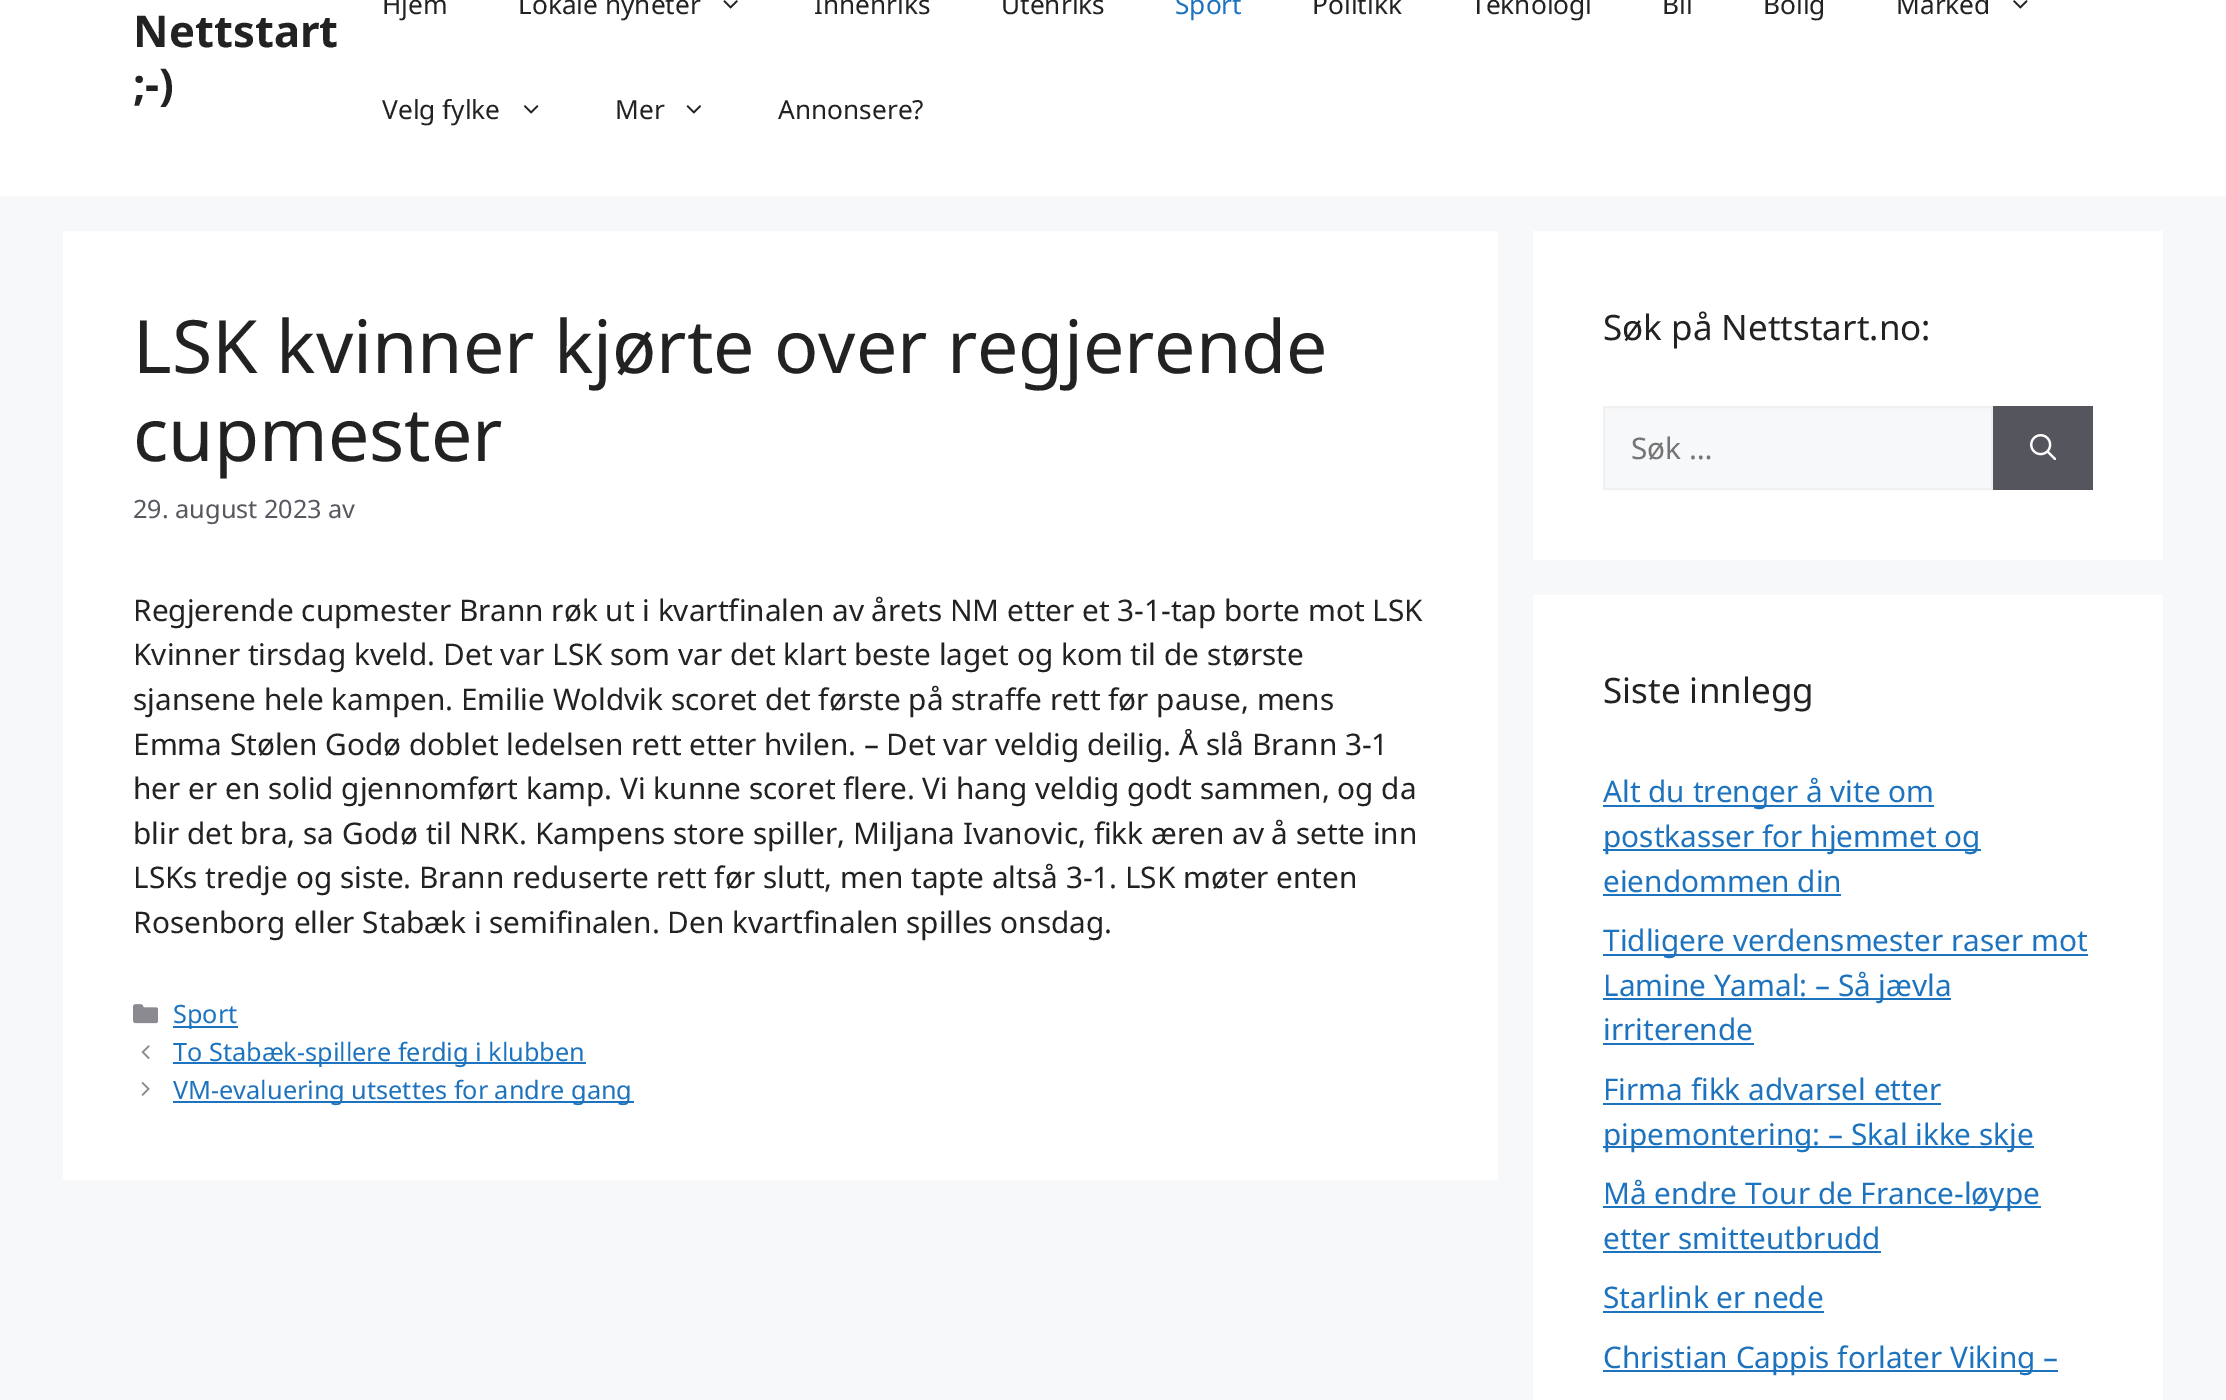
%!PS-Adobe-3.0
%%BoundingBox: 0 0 2226 1400
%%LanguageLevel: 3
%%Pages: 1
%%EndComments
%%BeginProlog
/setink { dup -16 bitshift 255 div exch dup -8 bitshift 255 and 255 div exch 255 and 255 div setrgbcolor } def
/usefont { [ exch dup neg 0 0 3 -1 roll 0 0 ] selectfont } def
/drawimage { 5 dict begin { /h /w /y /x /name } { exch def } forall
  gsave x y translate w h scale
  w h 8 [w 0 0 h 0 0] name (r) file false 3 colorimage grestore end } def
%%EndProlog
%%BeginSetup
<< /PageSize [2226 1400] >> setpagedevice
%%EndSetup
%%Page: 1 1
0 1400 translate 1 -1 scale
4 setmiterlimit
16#F7F8F9 setink
0 0 2226 1400 rectfill
16#FFFFFF setink
0 0 2226 196 rectfill
/NotoSans-Bold 43.75 usefont
16#222222 setink
133 47 moveto (Nettstart) show
133 100 moveto (;-\)) show
/NotoSans-Regular 26.25 usefont
382 14 moveto (Hjem) show
518 14 moveto (Lokale nyheter) show
(img1.raw) 723 0 15 9 drawimage
814 14 moveto (Innenriks) show
1001 14 moveto (Utenriks) show
16#1E73BE setink
1175 14 moveto (Sport) show
16#222222 setink
[
    [(Politikk) 1312 14]
    [(Teknologi) 1471 14]
    [(Bil) 1662 14]
    [(Bolig) 1763 14]
    [(Marked) 1896 14]
] { aload pop moveto show } forall
(img2.raw) 2013 0 15 9 drawimage
382 119 moveto (Velg fylke) show
(img3.raw) 523 105 16 9 drawimage
615 119 moveto (Mer) show
(img4.raw) 686 105 16 9 drawimage
778 119 moveto (Annonsere?) show
16#FFFFFF setink
63 231 1435 949 rectfill
/NotoSans-Regular 73.5 usefont
16#222222 setink
133 373 moveto (LSK kvinner kjørte over regjerende) show
133 461 moveto (cupmester) show
/NotoSans-Regular 25.25 usefont
16#575760 setink
133 518 moveto (29. august 2023 av) show
/NotoSans-Regular 29.75 usefont
16#222222 setink
[
    [(Regjerende cupmester Brann røk ut i kvartfinalen av årets NM etter et 3-1-tap borte mot LSK) 133 621]
    [(Kvinner tirsdag kveld. Det var LSK som var det klart beste laget og kom til de største) 133 665]
    [(sjansene hele kampen. Emilie Woldvik scoret det første på straffe rett før pause, mens) 133 710]
    [(Emma Stølen Godø doblet ledelsen rett etter hvilen. – Det var veldig deilig. Å slå Brann 3-1) 133 755]
    [(her er en solid gjennomført kamp. Vi kunne scoret flere. Vi hang veldig godt sammen, og da) 133 799]
    [(blir det bra, sa Godø til NRK. Kampens store spiller, Miljana Ivanovic, fikk æren av å sette inn) 133 844]
    [(LSKs tredje og siste. Brann reduserte rett før slutt, men tapte altså 3-1. LSK møter enten) 133 888]
    [(Rosenborg eller Stabæk i semifinalen. Den kvartfinalen spilles onsdag.) 133 933]
] { aload pop moveto show } forall
(img5.raw) 133 1004 25 20 drawimage
16#1E73BE setink
173 1026 65 2 rectfill
/NotoSans-Regular 25.25 usefont
173 1023 moveto (Sport) show
(img6.raw) 141 1045 9 14 drawimage
173 1062 413 2 rectfill
173 1061 moveto (To Stabæk-spillere ferdig i klubben) show
(img7.raw) 141 1082 9 14 drawimage
173 1101 461 2 rectfill
173 1099 moveto (VM-evaluering utsettes for andre gang) show
16#FFFFFF setink
1533 231 630 329 rectfill
/NotoSans-Regular 35 usefont
16#222222 setink
1603 340 moveto (Søk på Nettstart.no:) show
16#F7F8F9 setink
1604 407 moveto 1992 407 lineto 1992 489 lineto 1604 489 lineto closepath gsave fill grestore
16#F0F0F0 setink
2 setlinewidth
stroke
/NotoSans-Regular 29.75 usefont
16#757575 setink
1631 459 moveto (Søk …) show
16#55555E setink
1993 406 100 84 rectfill
(img8.raw) 2030 434 26 26 drawimage
16#FFFFFF setink
1533 595 630 805 rectfill
/NotoSans-Regular 35 usefont
16#222222 setink
1603 703 moveto (Siste innlegg) show
16#1E73BE setink
1603 805 331 2 rectfill
/NotoSans-Regular 29.75 usefont
1603 802 moveto (Alt du trenger å vite om) show
1603 849 378 2 rectfill
1603 847 moveto (postkasser for hjemmet og) show
1603 892 moveto (eiendommen din) show
1603 894 238 2 rectfill
1603 954 485 2 rectfill
1603 951 moveto (Tidligere verdensmester raser mot) show
1603 998 348 2 rectfill
1603 996 moveto (Lamine Yamal: – Så jævla) show
1603 1040 moveto (irriterende) show
1603 1043 151 2 rectfill
1603 1100 moveto (Firma fikk advarsel etter) show
1603 1103 338 2 rectfill
1603 1146 431 2 rectfill
1603 1145 moveto (pipemontering: – Skal ikke skje) show
1603 1206 438 2 rectfill
1603 1204 moveto (Må endre Tour de France-løype) show
1603 1249 moveto (etter smitteutbrudd) show
1603 1251 278 2 rectfill
1603 1308 moveto (Starlink er nede) show
1603 1311 221 2 rectfill
1603 1370 455 2 rectfill
1603 1368 moveto (Christian Cappis forlater Viking –) show
showpage
%%EOF
